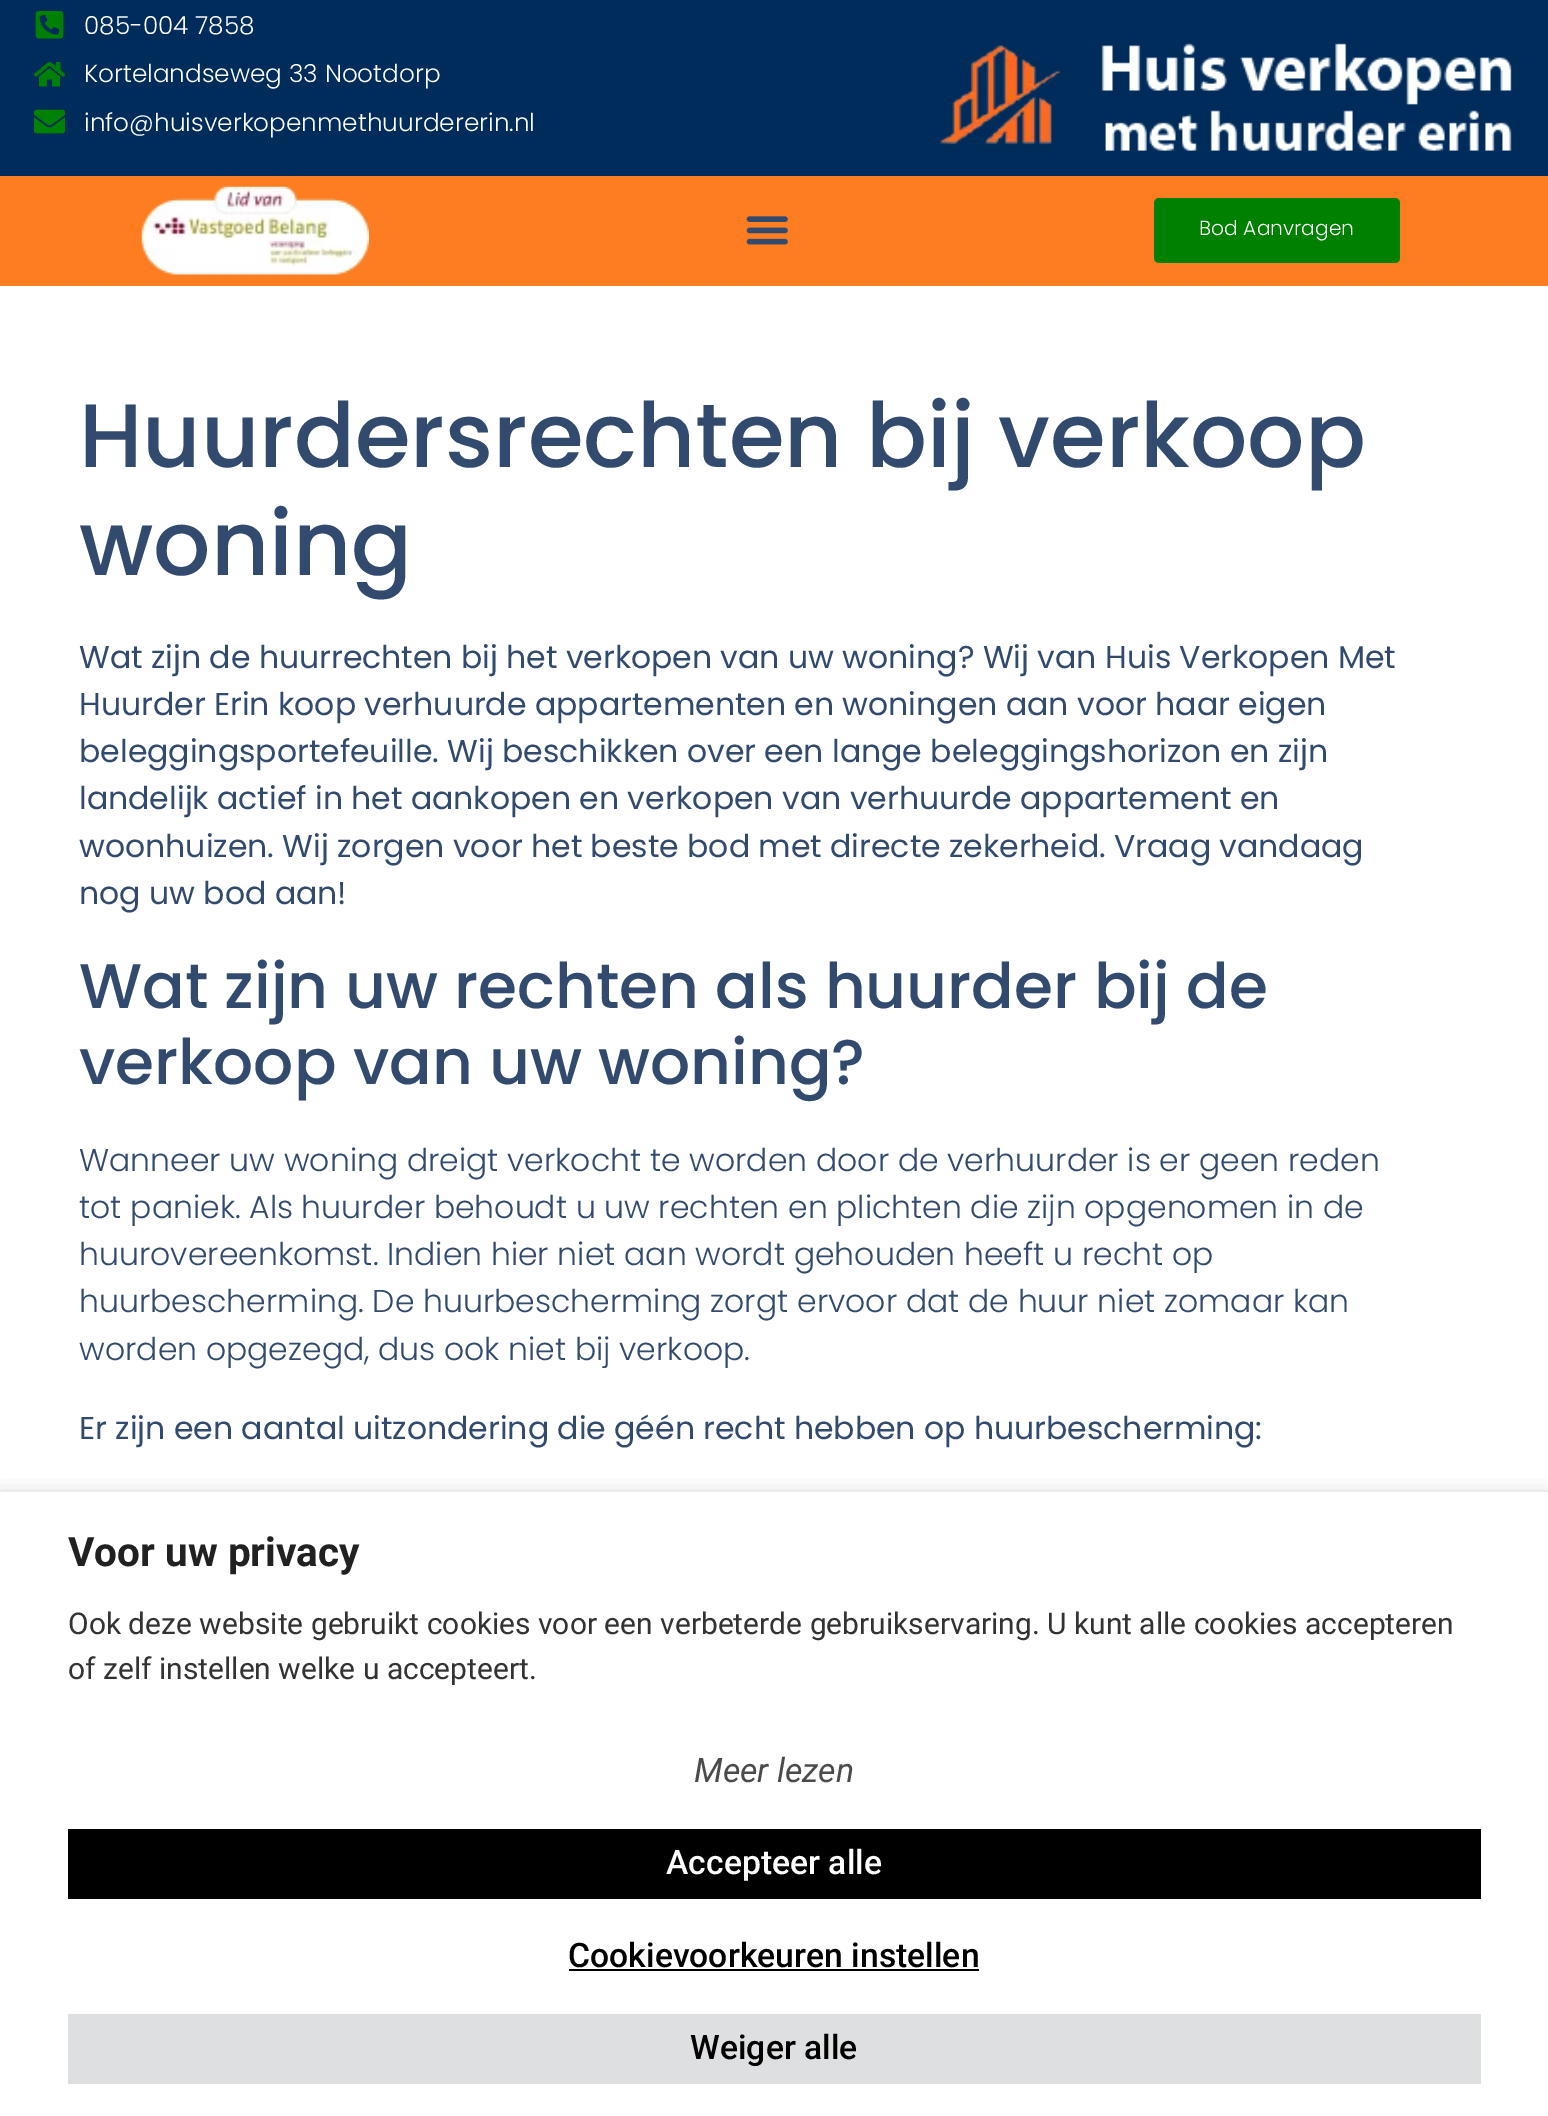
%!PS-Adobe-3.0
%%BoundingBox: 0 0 1548 2116
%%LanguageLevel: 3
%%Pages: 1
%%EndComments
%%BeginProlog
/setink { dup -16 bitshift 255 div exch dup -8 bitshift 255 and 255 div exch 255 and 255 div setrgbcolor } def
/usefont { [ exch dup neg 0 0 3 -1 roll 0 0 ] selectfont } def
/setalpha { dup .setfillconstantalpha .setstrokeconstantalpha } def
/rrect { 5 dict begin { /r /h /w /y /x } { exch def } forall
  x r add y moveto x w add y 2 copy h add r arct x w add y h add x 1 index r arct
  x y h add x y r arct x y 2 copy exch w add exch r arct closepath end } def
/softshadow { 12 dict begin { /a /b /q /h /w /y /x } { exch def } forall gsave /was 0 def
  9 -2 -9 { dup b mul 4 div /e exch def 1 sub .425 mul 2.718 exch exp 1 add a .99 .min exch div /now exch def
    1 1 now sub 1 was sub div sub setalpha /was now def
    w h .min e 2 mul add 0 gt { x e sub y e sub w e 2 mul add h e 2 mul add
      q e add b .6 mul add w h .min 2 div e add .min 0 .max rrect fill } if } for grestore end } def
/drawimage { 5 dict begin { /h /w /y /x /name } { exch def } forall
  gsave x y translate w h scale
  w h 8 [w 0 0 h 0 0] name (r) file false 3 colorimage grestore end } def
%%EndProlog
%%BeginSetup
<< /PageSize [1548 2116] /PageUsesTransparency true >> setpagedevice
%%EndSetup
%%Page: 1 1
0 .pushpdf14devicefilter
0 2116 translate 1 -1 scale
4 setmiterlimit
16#FFFFFF setink
0 0 1548 2116 rectfill
16#002C5B setink
0 0 1548 176 rectfill
(img1.raw) 35 11 29 28 drawimage
/Poppins-Light 24.75 usefont
16#FFFFFF setink
84 34 moveto (085-004 7858) show
(img2.raw) 34 62 31 25 drawimage
84 82 moveto (Kortelandseweg 33 Nootdorp) show
(img3.raw) 34 109 31 25 drawimage
84 131 moveto (info@huisverkopenmethuurdererin.nl) show
(img4.raw) 940 43 572 108 drawimage
16#FF7D21 setink
0 176 1548 110 rectfill
(img5.raw) 141 186 228 89 drawimage
(img6.raw) 746 216 42 29 drawimage
16#008000 setink
1154 198 246 65 5 rrect fill
/Poppins-Light 20.25 usefont
16#FFFFFF setink
1199 235 moveto (Bod Aanvragen) show
/Poppins-Medium 90 usefont
16#324A6D setink
79 467 moveto (Huurdersrechten bij verkoop) show
79 575 moveto (woning) show
/Poppins-Regular 31.5 usefont
[
    [(Wat zijn de huurrechten bij het verkopen van uw woning? Wij van Huis Verkopen Met) 79 668]
    [(Huurder Erin koop verhuurde appartementen en woningen aan voor haar eigen) 79 715]
    [(beleggingsportefeuille. Wij beschikken over een lange beleggingshorizon en zijn) 79 762]
    [(landelijk actief in het aankopen en verkopen van verhuurde appartement en) 79 809]
    [(woonhuizen. Wij zorgen voor het beste bod met directe zekerheid. Vraag vandaag) 79 857]
    [(nog uw bod aan!) 79 904]
] { aload pop moveto show } forall
/Poppins-Medium 63 usefont
79 1008 moveto (Wat zijn uw rechten als huurder bij de) show
79 1084 moveto (verkoop van uw woning?) show
/Poppins-Light 31.5 usefont
[
    [(Wanneer uw woning dreigt verkocht te worden door de verhuurder is er geen reden) 79 1171]
    [(tot paniek. Als huurder behoudt u uw rechten en plichten die zijn opgenomen in de) 79 1218]
    [(huurovereenkomst. Indien hier niet aan wordt gehouden heeft u recht op) 79 1265]
    [(huurbescherming. De huurbescherming zorgt ervoor dat de huur niet zomaar kan) 79 1312]
    [(worden opgezegd, dus ook niet bij verkoop.) 79 1360]
] { aload pop moveto show } forall
/Poppins-Regular 31.5 usefont
79 1439 moveto (Er zijn een aantal uitzondering die géén recht hebben op huurbescherming:) show
16#000000 setink
0 1503 1548 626 0 11 0.5 softshadow
16#FFFFFF setink
0 1492 1548 624 rectfill
/Roboto-Bold 40.5 usefont
16#212121 setink
68 1566 moveto (Voor uw privacy) show
/Roboto-Regular 30 usefont
16#333333 setink
68 1634 moveto (Ook deze website gebruikt cookies voor een verbeterde gebruikservaring. U kunt alle cookies accepteren) show
68 1679 moveto (of zelf instellen welke u accepteert.) show
/Roboto-Italic 33.75 usefont
16#4C4B4B setink
694 1782 moveto (Meer lezen) show
16#000000 setink
68 1829 1413 70 rectfill
/Roboto-Medium 33.75 usefont
16#FFFFFF setink
666 1874 moveto (Accepteer alle) show
16#000000 setink
568 1967 moveto (Cookievoorkeuren instellen) show
569 1969 410 2 rectfill
16#DEDFE0 setink
68 2014 1413 70 rectfill
16#000000 setink
690 2059 moveto (Weiger alle) show
.poppdf14devicefilter showpage
%%EOF
